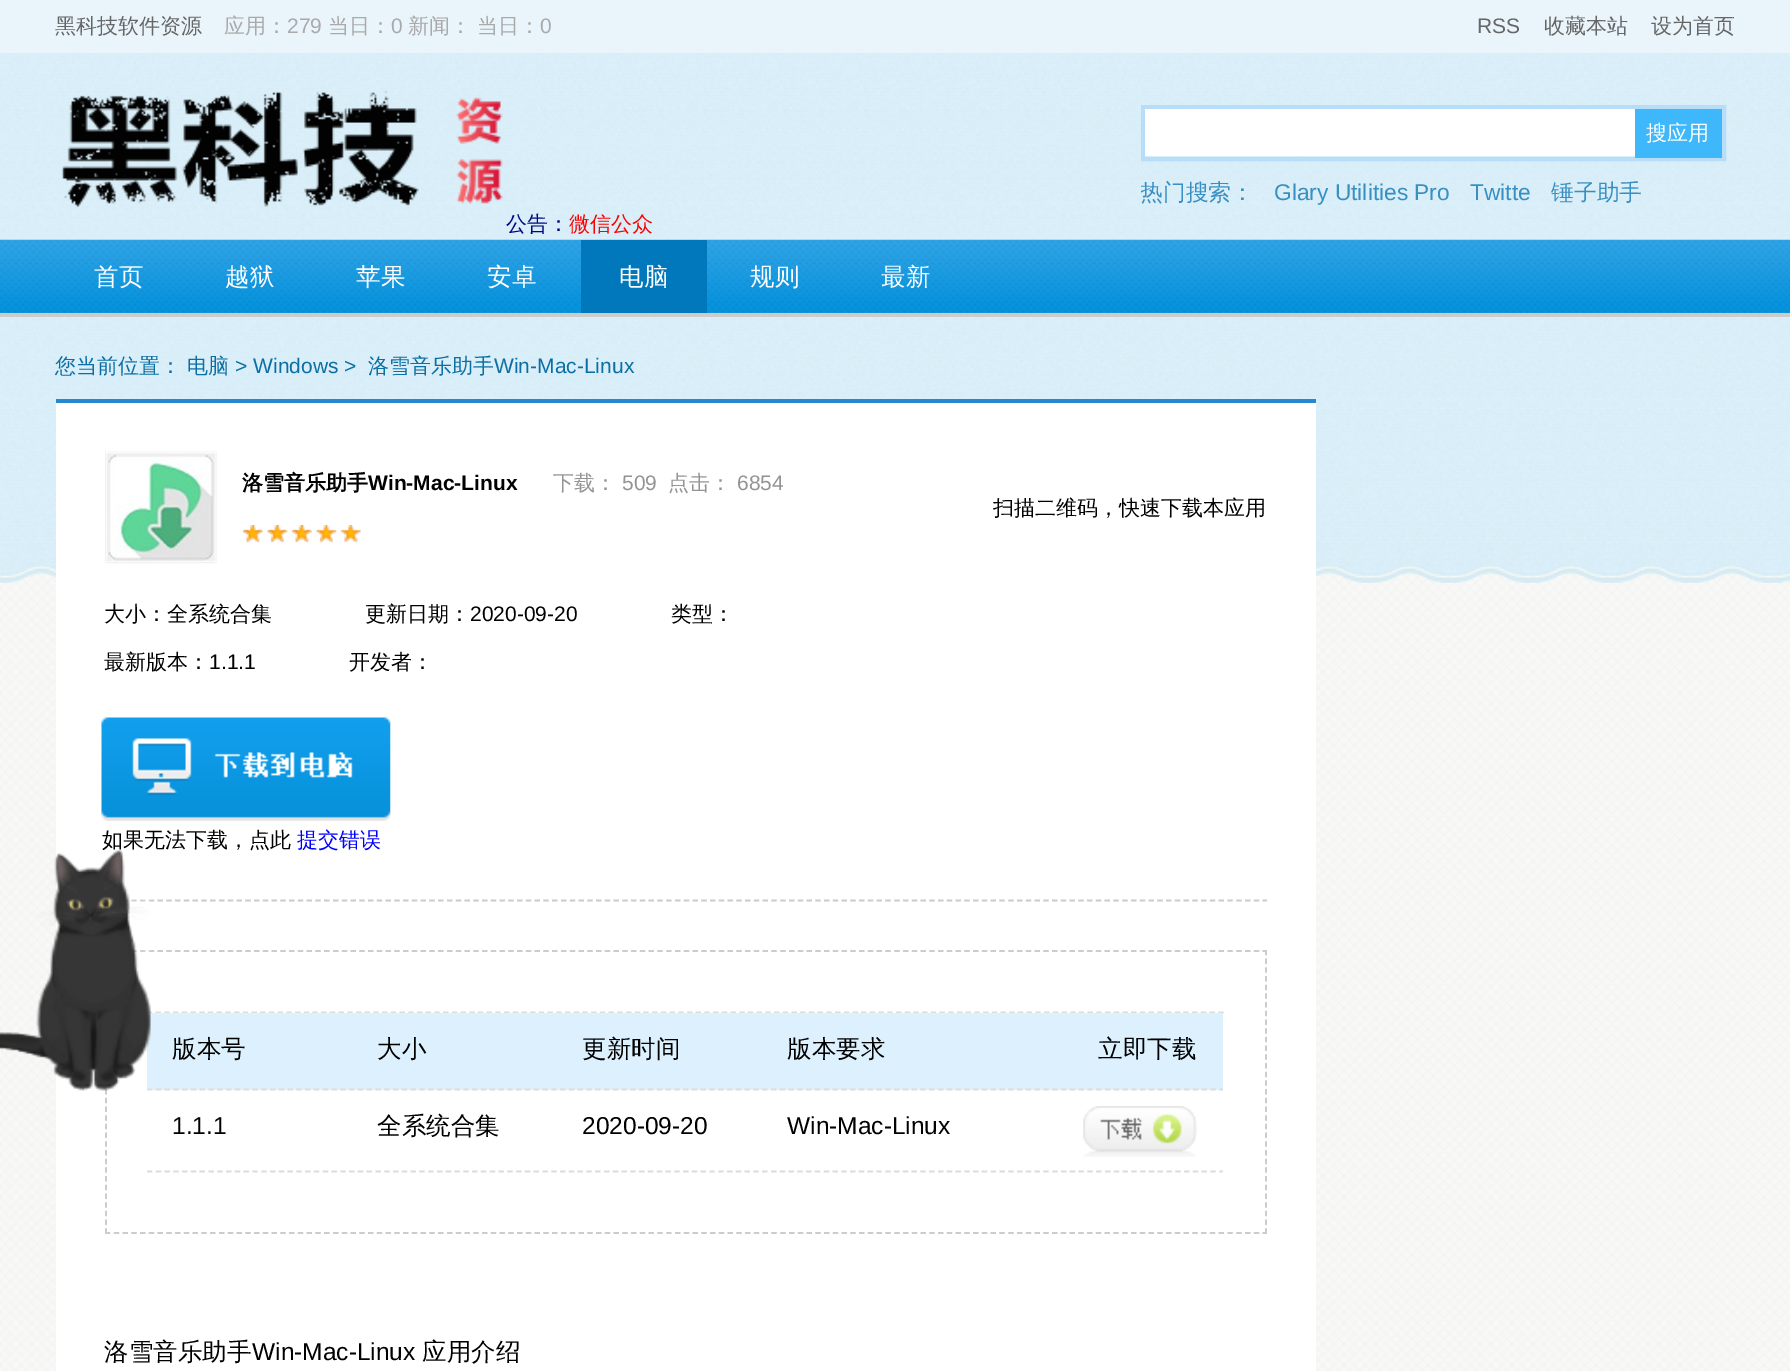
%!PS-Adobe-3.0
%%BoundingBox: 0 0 1790 1371
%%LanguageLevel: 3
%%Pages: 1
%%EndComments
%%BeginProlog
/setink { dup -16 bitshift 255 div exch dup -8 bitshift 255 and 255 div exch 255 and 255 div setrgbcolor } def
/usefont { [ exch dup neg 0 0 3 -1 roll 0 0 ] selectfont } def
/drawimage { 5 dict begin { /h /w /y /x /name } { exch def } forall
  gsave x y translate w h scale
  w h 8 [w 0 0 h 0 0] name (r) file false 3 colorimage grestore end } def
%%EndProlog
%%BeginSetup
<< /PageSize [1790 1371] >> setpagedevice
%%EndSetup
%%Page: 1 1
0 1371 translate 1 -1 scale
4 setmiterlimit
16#FFFFFF setink
0 0 1790 1371 rectfill
(img1.raw) 0 566 1790 805 drawimage
(img2.raw) 0 53 1790 530 drawimage
16#E9F5FB setink
0 0 1790 53 rectfill
/WenQuanYiZenHei-Medium 21 usefont
16#666666 setink
55 33 moveto (黑科技软件资源) show
16#AAAAAA setink
224 33 moveto (应用：) show
/LiberationSans-Regular 21 usefont
287 33 moveto (279) show
/WenQuanYiZenHei-Medium 21 usefont
328 33 moveto (当日：) show
/LiberationSans-Regular 21 usefont
391 33 moveto (0) show
/WenQuanYiZenHei-Medium 21 usefont
408 33 moveto (新闻： 当日：) show
/LiberationSans-Regular 21 usefont
540 33 moveto (0) show
16#666666 setink
1477 33 moveto (RSS) show
/WenQuanYiZenHei-Medium 21 usefont
1544 33 moveto (收藏本站) show
1651 33 moveto (设为首页) show
(img3.raw) 62 90 441 117 drawimage
16#B8DDF8 setink
4 setlinewidth
1143 107 581 52 rectstroke
16#FFFFFF setink
1145 109 490 47 rectfill
16#3EB8FA setink
1635 109 87 49 rectfill
16#FFFFFF setink
1646 140 moveto (搜应用) show
gsave
1141 161 578 63 rectclip
/WenQuanYiZenHei-Medium 22.75 usefont
16#3890C2 setink
1140 200 moveto (热门搜索：) show
grestore
/LiberationSans-Regular 22.75 usefont
16#3890C2 setink
1274 200 moveto (Glary Utilities Pro) show
1470 200 moveto (Twitte) show
/WenQuanYiZenHei-Medium 22.75 usefont
1551 200 moveto (锤子助手) show
/WenQuanYiZenHei-Medium 21 usefont
16#000880 setink
506 231 moveto (公告：) show
16#FF0000 setink
569 231 moveto (微信公众) show
(img4.raw) 0 239 1790 74 drawimage
16#CCCCCC setink
0 313 1790 4 rectfill
/WenQuanYiZenHei-Medium 24.5 usefont
16#FFFFFF setink
[
    [(首页) 94 285]
    [(越狱) 225 285]
    [(苹果) 356 285]
    [(安卓) 487 285]
] { aload pop moveto show } forall
16#0078BB setink
581 240 126 73 rectfill
16#FFFFFF setink
[
    [(电脑) 619 285]
    [(规则) 750 285]
    [(最新) 881 285]
] { aload pop moveto show } forall
/WenQuanYiZenHei-Medium 21 usefont
16#0C6FA4 setink
55 373 moveto (您当前位置：) show
187 373 moveto (电脑) show
/LiberationSans-Regular 21 usefont
235 373 moveto (> Windows >) show
/WenQuanYiZenHei-Medium 21 usefont
368 373 moveto (洛雪音乐助手) show
/LiberationSans-Regular 21 usefont
494 373 moveto (Win-Mac-Linux) show
16#FFFFFF setink
56 403 1260 968 rectfill
16#2788CF setink
56 399 1260 4 rectfill
(img5.raw) 105 451 112 113 drawimage
/WenQuanYiZenHei-Bold 21 usefont
16#000000 setink
242 490 moveto (洛雪音乐助手) show
/LiberationSans-Bold 21 usefont
368 490 moveto (Win-Mac-Linux) show
/WenQuanYiZenHei-Medium 21 usefont
16#949494 setink
553 490 moveto (下载：) show
/LiberationSans-Regular 21 usefont
622 490 moveto (509) show
/WenQuanYiZenHei-Medium 21 usefont
668 490 moveto (点击：) show
/LiberationSans-Regular 21 usefont
737 490 moveto (6854) show
(img6.raw) 243 525 118 18 drawimage
(img7.raw) 243 525 118 18 drawimage
/WenQuanYiZenHei-Medium 21 usefont
16#000000 setink
104 621 moveto (大小：全系统合集) show
365 621 moveto (更新日期：) show
/LiberationSans-Regular 21 usefont
470 621 moveto (2020-09-20) show
/WenQuanYiZenHei-Medium 21 usefont
671 621 moveto (类型：) show
104 669 moveto (最新版本：) show
/LiberationSans-Regular 21 usefont
209 669 moveto (1.1.1) show
/WenQuanYiZenHei-Medium 21 usefont
349 669 moveto (开发者：) show
993 515 moveto (扫描二维码，快速下载本应用) show
(img8.raw) 101 717 290 104 drawimage
102 847 moveto (如果无法下载，点此) show
16#0000FF setink
297 847 moveto (提交错误) show
16#CCCCCC setink
1.8 setlinewidth
[5.25 3.52] 0 setdash
105 900.5 moveto 1267 900.5 lineto stroke
105 951 moveto 1267 951 lineto stroke
[5.25 3.45] 0 setdash
1266 950 moveto 1266 1234 lineto stroke
[5.25 3.52] 0 setdash
105 1233 moveto 1267 1233 lineto stroke
[5.25 3.45] 0 setdash
106 950 moveto 106 1234 lineto stroke
16#DDDDDD setink
[5.25 3.46] 0 setdash
147 1012.5 moveto 1225 1012.5 lineto stroke
16#DDF0FD setink
147 1013 1076 77 rectfill
16#DDDDDD setink
[5.25 3.54] 0 setdash
147 1089.5 moveto 1223 1089.5 lineto stroke
/WenQuanYiZenHei-Medium 24.5 usefont
16#000000 setink
[
    [(版本号) 172 1057]
    [(大小) 377 1057]
    [(更新时间) 582 1057]
    [(版本要求) 787 1057]
    [(立即下载) 1098 1057]
] { aload pop moveto show } forall
16#DDDDDD setink
147 1171.5 moveto 1223 1171.5 lineto stroke
/LiberationSans-Regular 24.5 usefont
16#000000 setink
172 1134 moveto (1.1.1) show
/WenQuanYiZenHei-Medium 24.5 usefont
377 1134 moveto (全系统合集) show
/LiberationSans-Regular 24.5 usefont
582 1134 moveto (2020-09-20) show
787 1134 moveto (Win-Mac-Linux) show
(img9.raw) 1083 1106 114 51 drawimage
/WenQuanYiZenHei-Medium 24.5 usefont
104 1360 moveto (洛雪音乐助手) show
/LiberationSans-Regular 24.5 usefont
252 1360 moveto (Win-Mac-Linux) show
/WenQuanYiZenHei-Medium 24.5 usefont
422 1360 moveto (应用介绍) show
(img10.raw) 0 850 151 241 drawimage
showpage
%%EOF
